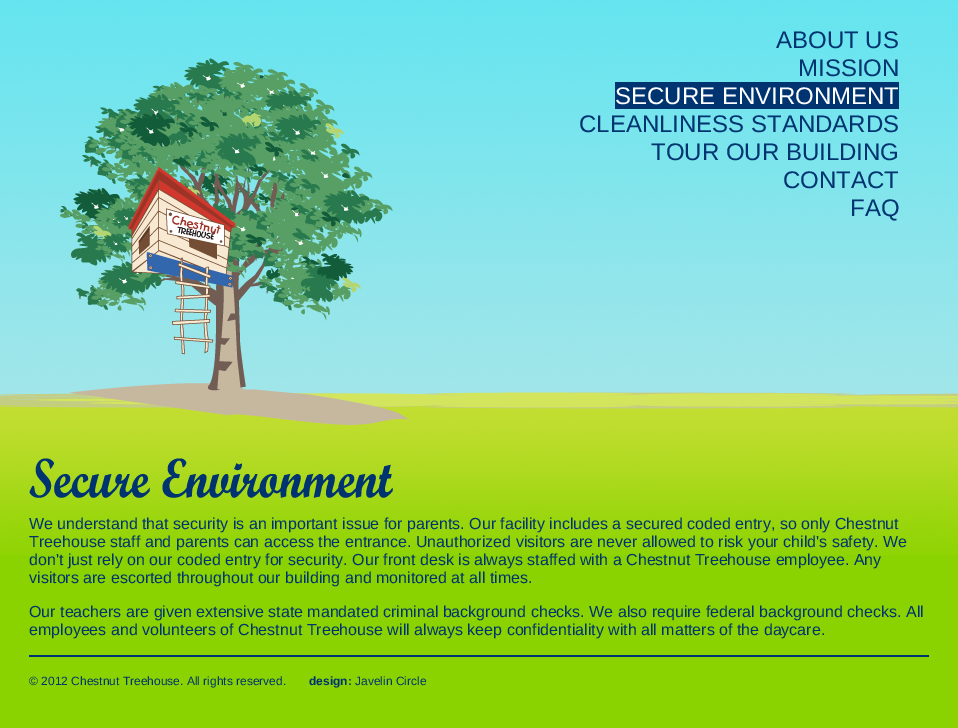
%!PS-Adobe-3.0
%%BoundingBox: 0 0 958 728
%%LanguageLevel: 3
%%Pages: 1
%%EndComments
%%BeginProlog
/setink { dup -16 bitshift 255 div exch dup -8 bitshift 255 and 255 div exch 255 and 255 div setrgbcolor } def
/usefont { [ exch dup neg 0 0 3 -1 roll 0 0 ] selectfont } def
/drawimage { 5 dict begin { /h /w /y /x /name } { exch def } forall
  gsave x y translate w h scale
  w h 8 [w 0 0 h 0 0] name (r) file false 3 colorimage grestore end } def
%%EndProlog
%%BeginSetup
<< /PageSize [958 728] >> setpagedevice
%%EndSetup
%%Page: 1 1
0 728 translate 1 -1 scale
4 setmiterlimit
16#8BD300 setink
0 0 958 728 rectfill
(img1.raw) 0 0 958 555 drawimage
(img2.raw) 60 58 350 367 drawimage
/LiberationSans-Regular 24 usefont
16#003471 setink
776 48 moveto (ABOUT US) show
798 76 moveto (MISSION) show
615 82 284 27 rectfill
16#FFFFFF setink
615 104 moveto (SECURE ENVIRONMENT) show
16#003471 setink
[
    [(CLEANLINESS STANDARDS) 579 132]
    [(TOUR OUR BUILDING) 651 160]
    [(CONTACT) 783 188]
    [(FAQ) 850 216]
] { aload pop moveto show } forall
(img3.raw) 29 458 364 40 drawimage
/LiberationSans-Regular 16 usefont
[
    [(We understand that security is an important issue for parents. Our facility includes a secured coded entry, so only Chestnut) 29 529]
    [(Treehouse staff and parents can access the entrance. Unauthorized visitors are never allowed to risk your child's safety. We) 29 547]
    [(don't just rely on our coded entry for security. Our front desk is always staffed with a Chestnut Treehouse employee. Any) 29 565]
    [(visitors are escorted throughout our building and monitored at all times.) 29 583]
    [(Our teachers are given extensive state mandated criminal background checks. We also require federal background checks. All) 29 617]
    [(employees and volunteers of Chestnut Treehouse will always keep confidentiality with all matters of the daycare.) 29 635]
] { aload pop moveto show } forall
29 655 900 2 rectfill
/LiberationSans-Regular 12 usefont
29 685 moveto (© 2012 Chestnut Treehouse. All rights reserved.) show
/LiberationSans-Bold 12 usefont
309 685 moveto (design:) show
/LiberationSans-Regular 12 usefont
355 685 moveto (Javelin Circle) show
showpage
%%EOF
